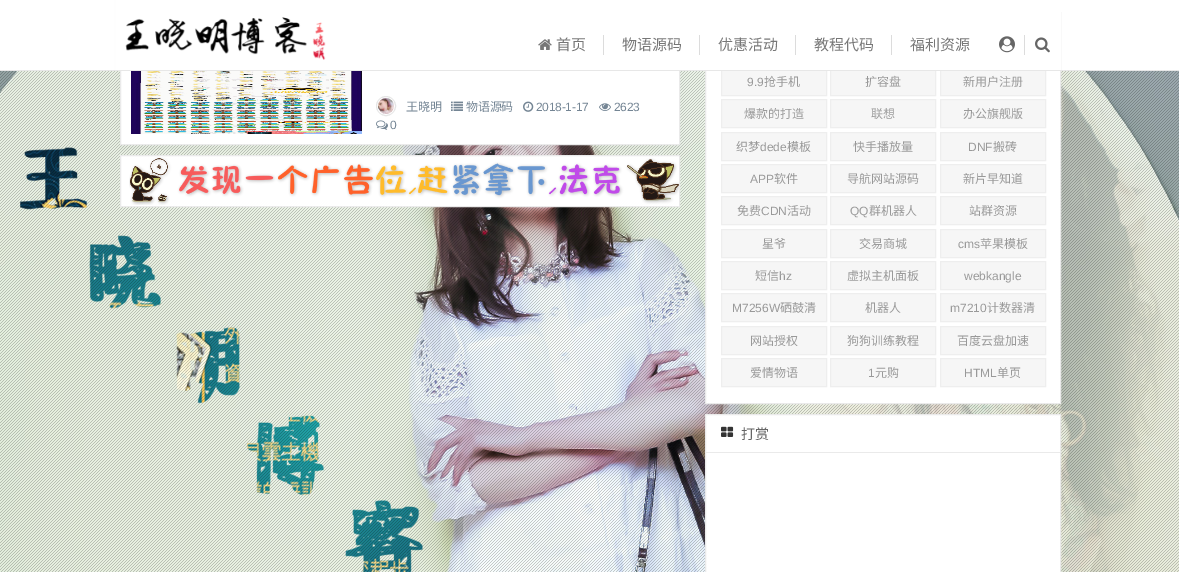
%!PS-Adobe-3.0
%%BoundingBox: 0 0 1179 572
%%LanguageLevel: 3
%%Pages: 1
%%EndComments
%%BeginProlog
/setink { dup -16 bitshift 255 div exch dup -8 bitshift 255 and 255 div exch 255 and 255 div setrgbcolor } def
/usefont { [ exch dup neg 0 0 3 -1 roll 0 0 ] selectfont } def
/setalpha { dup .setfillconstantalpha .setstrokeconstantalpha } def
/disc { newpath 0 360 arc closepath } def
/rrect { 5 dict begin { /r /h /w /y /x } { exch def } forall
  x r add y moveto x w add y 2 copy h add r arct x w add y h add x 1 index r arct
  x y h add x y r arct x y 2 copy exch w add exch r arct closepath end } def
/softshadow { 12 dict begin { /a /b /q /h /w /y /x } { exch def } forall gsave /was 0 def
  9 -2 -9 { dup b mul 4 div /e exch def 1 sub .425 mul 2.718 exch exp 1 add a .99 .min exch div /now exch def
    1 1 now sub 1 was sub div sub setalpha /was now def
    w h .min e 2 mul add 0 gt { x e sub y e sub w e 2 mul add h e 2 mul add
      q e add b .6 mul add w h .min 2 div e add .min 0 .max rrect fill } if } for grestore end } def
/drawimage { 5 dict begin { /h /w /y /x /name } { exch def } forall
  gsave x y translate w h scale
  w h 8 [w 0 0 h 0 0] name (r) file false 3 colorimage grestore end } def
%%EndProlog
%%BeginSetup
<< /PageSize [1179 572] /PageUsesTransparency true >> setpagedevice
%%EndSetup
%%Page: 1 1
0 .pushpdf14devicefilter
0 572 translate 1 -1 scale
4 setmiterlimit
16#FFFFFF setink
0 0 1179 572 rectfill
(img1.raw) 0 71 1179 501 drawimage
(img6.raw) 0 71 1179 501 drawimage
16#929292 setink
120 -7 560 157 0 5 0.1 softshadow
16#FFFFFF setink
121 71 558 73 rectfill
16#EAEAEA setink
120.5 -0.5 559 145 rectstroke
16#FFFFFF setink
706 71 354 332 rectfill
16#EAEAEA setink
705.5 12.5 355 391 rectstroke
16#F6F6F6 setink
722 71 104 24 rectfill
16#EEEEEE setink
721.5 67.5 105 28 rectstroke
16#F6F6F6 setink
831 71 104 24 rectfill
16#EEEEEE setink
830.5 67.5 105 28 rectstroke
16#F6F6F6 setink
941 71 104 24 rectfill
16#EEEEEE setink
940.5 67.5 105 28 rectstroke
16#FFFFFF setink
116 0 945 70 rectfill
16#E7E7E7 setink
0 70 1179 1 rectfill
(img2.raw) 125 17 201 43 drawimage
16#DCDCDC setink
603 35 1 20 rectfill
(img3.raw) 538 39 14 11 drawimage
/NotoSansCJKSC-Regular 15 usefont
16#777777 setink
556 50 moveto (首页) show
16#DCDCDC setink
699 35 1 20 rectfill
16#777777 setink
622 50 moveto (物语源码) show
16#DCDCDC setink
795 35 1 20 rectfill
16#777777 setink
718 50 moveto (优惠活动) show
16#DCDCDC setink
891 35 1 20 rectfill
16#777777 setink
814 50 moveto (教程代码) show
910 50 moveto (福利资源) show
16#DCDCDC setink
1024 35 1 20 rectfill
(img4.raw) 999 36 16 17 drawimage
(img5.raw) 1035 37 15 16 drawimage
(img7.raw) 131 71 231 63 drawimage
16#E5E5E5 setink
386 106 9.5 disc stroke
(img8.raw) 378 98 16 16 drawimage
/NotoSansCJKSC-Regular 12 usefont
16#748594 setink
406 111 moveto -0.25 0 (王晓明) ashow
(img9.raw) 451 101 12 10 drawimage
466 111 moveto -0.25 0 (物语源码) ashow
(img10.raw) 523 101 11 11 drawimage
/LiberationSans-Regular 12 usefont
536 111 moveto -0.25 0 (2018-1-17) ashow
(img11.raw) 599 103 12 8 drawimage
614 111 moveto -0.25 0 (2623) ashow
(img12.raw) 376 120 12 10 drawimage
390 129 moveto -0.25 0 (0) ashow
16#FFFFFF setink
120.5 155.5 moveto 679.5 155.5 lineto 679.5 206.5 lineto 120.5 206.5 lineto closepath gsave fill grestore
16#EAEAEA setink
stroke
(img13.raw) 129 157 550 48 drawimage
16#999999 setink
747 86 moveto (9.9) show
/NotoSansCJKSC-Regular 12 usefont
[
    [(抢手机) 764 86]
    [(扩容盘) 865 86]
    [(新用户注册) 963 86]
] { aload pop moveto show } forall
16#F6F6F6 setink
721.5 99.5 moveto 826.5 99.5 lineto 826.5 127.5 lineto 721.5 127.5 lineto closepath gsave fill grestore
16#EEEEEE setink
stroke
16#999999 setink
744 118 moveto (爆款的打造) show
16#F6F6F6 setink
830.5 99.5 moveto 935.5 99.5 lineto 935.5 127.5 lineto 830.5 127.5 lineto closepath gsave fill grestore
16#EEEEEE setink
stroke
16#999999 setink
871 118 moveto (联想) show
16#F6F6F6 setink
940.5 99.5 moveto 1045.5 99.5 lineto 1045.5 127.5 lineto 940.5 127.5 lineto closepath gsave fill grestore
16#EEEEEE setink
stroke
16#999999 setink
963 118 moveto (办公旗舰版) show
16#F6F6F6 setink
721.5 132.5 moveto 826.5 132.5 lineto 826.5 160.5 lineto 721.5 160.5 lineto closepath gsave fill grestore
16#EEEEEE setink
stroke
16#999999 setink
736 151 moveto (织梦) show
/LiberationSans-Regular 12 usefont
760 151 moveto (dede) show
/NotoSansCJKSC-Regular 12 usefont
787 151 moveto (模板) show
16#F6F6F6 setink
830.5 132.5 moveto 935.5 132.5 lineto 935.5 160.5 lineto 830.5 160.5 lineto closepath gsave fill grestore
16#EEEEEE setink
stroke
16#999999 setink
853 151 moveto (快手播放量) show
16#F6F6F6 setink
940.5 132.5 moveto 1045.5 132.5 lineto 1045.5 160.5 lineto 940.5 160.5 lineto closepath gsave fill grestore
16#EEEEEE setink
stroke
/LiberationSans-Regular 12 usefont
16#999999 setink
968 151 moveto (DNF) show
/NotoSansCJKSC-Regular 12 usefont
993 151 moveto (搬砖) show
16#F6F6F6 setink
721.5 164.5 moveto 826.5 164.5 lineto 826.5 192.5 lineto 721.5 192.5 lineto closepath gsave fill grestore
16#EEEEEE setink
stroke
/LiberationSans-Regular 12 usefont
16#999999 setink
750 183 moveto (APP) show
/NotoSansCJKSC-Regular 12 usefont
774 183 moveto (软件) show
16#F6F6F6 setink
830.5 164.5 moveto 935.5 164.5 lineto 935.5 192.5 lineto 830.5 192.5 lineto closepath gsave fill grestore
16#EEEEEE setink
stroke
16#999999 setink
847 183 moveto (导航网站源码) show
16#F6F6F6 setink
940.5 164.5 moveto 1045.5 164.5 lineto 1045.5 192.5 lineto 940.5 192.5 lineto closepath gsave fill grestore
16#EEEEEE setink
stroke
16#999999 setink
963 183 moveto (新片早知道) show
16#F6F6F6 setink
721.5 196.5 moveto 826.5 196.5 lineto 826.5 224.5 lineto 721.5 224.5 lineto closepath gsave fill grestore
16#EEEEEE setink
stroke
16#999999 setink
737 215 moveto (免费) show
/LiberationSans-Regular 12 usefont
761 215 moveto (CDN) show
/NotoSansCJKSC-Regular 12 usefont
787 215 moveto (活动) show
16#F6F6F6 setink
830.5 196.5 moveto 935.5 196.5 lineto 935.5 224.5 lineto 830.5 224.5 lineto closepath gsave fill grestore
16#EEEEEE setink
stroke
/LiberationSans-Regular 12 usefont
16#999999 setink
850 215 moveto (QQ) show
/NotoSansCJKSC-Regular 12 usefont
869 215 moveto (群机器人) show
16#F6F6F6 setink
940.5 196.5 moveto 1045.5 196.5 lineto 1045.5 224.5 lineto 940.5 224.5 lineto closepath gsave fill grestore
16#EEEEEE setink
stroke
16#999999 setink
969 215 moveto (站群资源) show
16#F6F6F6 setink
721.5 229.5 moveto 826.5 229.5 lineto 826.5 257.5 lineto 721.5 257.5 lineto closepath gsave fill grestore
16#EEEEEE setink
stroke
16#999999 setink
762 248 moveto (星爷) show
16#F6F6F6 setink
830.5 229.5 moveto 935.5 229.5 lineto 935.5 257.5 lineto 830.5 257.5 lineto closepath gsave fill grestore
16#EEEEEE setink
stroke
16#999999 setink
859 248 moveto (交易商城) show
16#F6F6F6 setink
940.5 229.5 moveto 1045.5 229.5 lineto 1045.5 257.5 lineto 940.5 257.5 lineto closepath gsave fill grestore
16#EEEEEE setink
stroke
/LiberationSans-Regular 12 usefont
16#999999 setink
958 248 moveto (cms) show
/NotoSansCJKSC-Regular 12 usefont
980 248 moveto (苹果模板) show
16#F6F6F6 setink
721.5 261.5 moveto 826.5 261.5 lineto 826.5 289.5 lineto 721.5 289.5 lineto closepath gsave fill grestore
16#EEEEEE setink
stroke
16#999999 setink
755 280 moveto (短信) show
/LiberationSans-Regular 12 usefont
779 280 moveto (hz) show
16#F6F6F6 setink
830.5 261.5 moveto 935.5 261.5 lineto 935.5 289.5 lineto 830.5 289.5 lineto closepath gsave fill grestore
16#EEEEEE setink
stroke
/NotoSansCJKSC-Regular 12 usefont
16#999999 setink
847 280 moveto (虚拟主机面板) show
16#F6F6F6 setink
940.5 261.5 moveto 1045.5 261.5 lineto 1045.5 289.5 lineto 940.5 289.5 lineto closepath gsave fill grestore
16#EEEEEE setink
stroke
/LiberationSans-Regular 12 usefont
16#999999 setink
964 280 moveto (webkangle) show
16#F6F6F6 setink
721.5 293.5 moveto 826.5 293.5 lineto 826.5 321.5 lineto 721.5 321.5 lineto closepath gsave fill grestore
16#EEEEEE setink
stroke
16#999999 setink
732 312 moveto (M7256W) show
/NotoSansCJKSC-Regular 12 usefont
780 312 moveto (硒鼓清) show
16#F6F6F6 setink
830.5 293.5 moveto 935.5 293.5 lineto 935.5 321.5 lineto 830.5 321.5 lineto closepath gsave fill grestore
16#EEEEEE setink
stroke
16#999999 setink
865 312 moveto (机器人) show
16#F6F6F6 setink
940.5 293.5 moveto 1045.5 293.5 lineto 1045.5 321.5 lineto 940.5 321.5 lineto closepath gsave fill grestore
16#EEEEEE setink
stroke
/LiberationSans-Regular 12 usefont
16#999999 setink
950 312 moveto (m7210) show
/NotoSansCJKSC-Regular 12 usefont
987 312 moveto (计数器清) show
16#F6F6F6 setink
721.5 326.5 moveto 826.5 326.5 lineto 826.5 354.5 lineto 721.5 354.5 lineto closepath gsave fill grestore
16#EEEEEE setink
stroke
16#999999 setink
750 345 moveto (网站授权) show
16#F6F6F6 setink
830.5 326.5 moveto 935.5 326.5 lineto 935.5 354.5 lineto 830.5 354.5 lineto closepath gsave fill grestore
16#EEEEEE setink
stroke
16#999999 setink
847 345 moveto (狗狗训练教程) show
16#F6F6F6 setink
940.5 326.5 moveto 1045.5 326.5 lineto 1045.5 354.5 lineto 940.5 354.5 lineto closepath gsave fill grestore
16#EEEEEE setink
stroke
16#999999 setink
957 345 moveto (百度云盘加速) show
16#F6F6F6 setink
721.5 358.5 moveto 826.5 358.5 lineto 826.5 386.5 lineto 721.5 386.5 lineto closepath gsave fill grestore
16#EEEEEE setink
stroke
16#999999 setink
750 377 moveto (爱情物语) show
16#F6F6F6 setink
830.5 358.5 moveto 935.5 358.5 lineto 935.5 386.5 lineto 830.5 386.5 lineto closepath gsave fill grestore
16#EEEEEE setink
stroke
/LiberationSans-Regular 12 usefont
16#999999 setink
868 377 moveto (1) show
/NotoSansCJKSC-Regular 12 usefont
875 377 moveto (元购) show
16#F6F6F6 setink
940.5 358.5 moveto 1045.5 358.5 lineto 1045.5 386.5 lineto 940.5 386.5 lineto closepath gsave fill grestore
16#EEEEEE setink
stroke
/LiberationSans-Regular 12 usefont
16#999999 setink
964 377 moveto (HTML) show
/NotoSansCJKSC-Regular 12 usefont
997 377 moveto (单页) show
16#FFFFFF setink
705.5 414.5 moveto 1060.5 414.5 lineto 1060.5 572.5 lineto 705.5 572.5 lineto closepath gsave fill grestore
16#EAEAEA setink
stroke
(img14.raw) 721 426 13 11 drawimage
706 452 354 1 rectfill
/NotoSansCJKSC-Regular 14 usefont
16#666666 setink
741 439 moveto (打赏) show
.poppdf14devicefilter showpage
%%EOF
